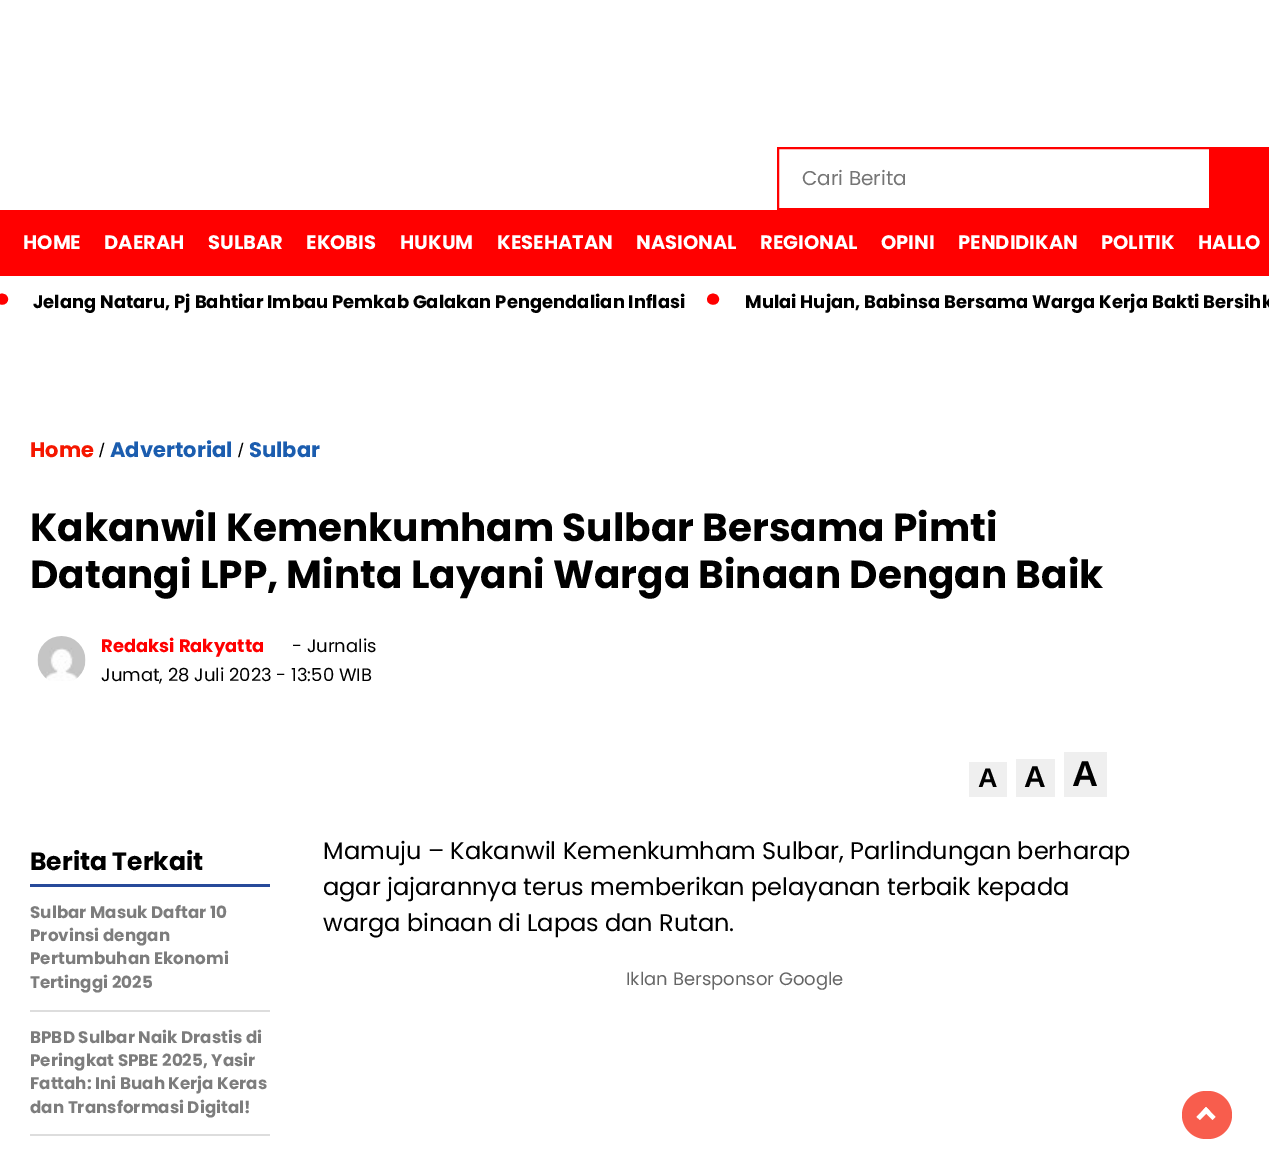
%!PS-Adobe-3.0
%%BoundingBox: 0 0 1269 1161
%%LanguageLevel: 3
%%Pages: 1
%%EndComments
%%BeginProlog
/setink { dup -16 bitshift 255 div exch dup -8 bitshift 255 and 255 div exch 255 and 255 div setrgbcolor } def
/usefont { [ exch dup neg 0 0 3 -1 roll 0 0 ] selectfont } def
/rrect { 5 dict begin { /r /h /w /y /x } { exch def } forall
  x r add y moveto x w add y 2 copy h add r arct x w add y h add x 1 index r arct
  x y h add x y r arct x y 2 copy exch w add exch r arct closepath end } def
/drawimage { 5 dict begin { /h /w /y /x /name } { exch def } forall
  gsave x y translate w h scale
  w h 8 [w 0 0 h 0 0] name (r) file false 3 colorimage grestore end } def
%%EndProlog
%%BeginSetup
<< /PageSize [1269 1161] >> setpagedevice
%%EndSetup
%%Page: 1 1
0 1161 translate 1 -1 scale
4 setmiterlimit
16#FFFFFF setink
0 0 1269 1161 rectfill
16#FF0000 setink
2 setlinewidth
778 148 432 61 rectstroke
/Poppins-Regular 20 usefont
16#757575 setink
802 185 moveto (Cari Berita) show
16#FF0000 setink
1211 147 58 63 rectfill
0 210 1269 66 rectfill
/Poppins-Bold 19.5 usefont
16#FFFFFF setink
[
    [(HOME) 23 249]
    [(DAERAH) 104 249]
    [(SULBAR) 208 249]
    [(EKOBIS) 306 249]
    [(HUKUM) 400 249]
    [(KESEHATAN) 497 249]
    [(NASIONAL) 636 249]
    [(REGIONAL) 760 249]
    [(OPINI) 881 249]
    [(PENDIDIKAN) 958 249]
    [(POLITIK) 1101 249]
    [(HALLO) 1198 249]
] { aload pop moveto show } forall
/Poppins-Bold 60 usefont
16#FF0000 setink
-7 318 moveto (·) show
/Poppins-Bold 18 usefont
16#000000 setink
33 308 moveto (Jelang Nataru, Pj Bahtiar Imbau Pemkab Galakan Pengendalian Inflasi) show
/Poppins-Bold 60 usefont
16#FF0000 setink
704 318 moveto (·) show
/Poppins-Bold 18 usefont
16#000000 setink
745 308 moveto (Mulai Hujan, Babinsa Bersama Warga Kerja Bakti Bersihk) show
/Poppins-Bold 21 usefont
16#F51700 setink
30 457 moveto (Home) show
/LiberationSans-Regular 19.5 usefont
16#000000 setink
99 457 moveto (/) show
/Poppins-Bold 21 usefont
16#1B5DAF setink
110 457 moveto (Advertorial) show
/LiberationSans-Regular 19.5 usefont
16#000000 setink
238 457 moveto (/) show
/Poppins-Bold 21 usefont
16#1B5DAF setink
249 457 moveto (Sulbar) show
/Poppins-Bold 39 usefont
16#000000 setink
30 541 moveto (Kakanwil Kemenkumham Sulbar Bersama Pimti) show
30 588 moveto (Datangi LPP, Minta Layani Warga Binaan Dengan Baik) show
(img1.raw) 37 636 49 45 drawimage
/Poppins-Bold 18 usefont
16#FF0000 setink
101 652 moveto (Redaksi Rakyatta) show
/Poppins-Regular 18 usefont
16#000000 setink
292 652 moveto (- Jurnalis) show
101 681 moveto (Jumat, 28 Juli 2023 - 13:50 WIB) show
16#EFEFEF setink
969 762 38 35 rectfill
/LiberationSans-Bold 27 usefont
16#000000 setink
978 787 moveto (A) show
16#EFEFEF setink
1016 759 39 38 rectfill
/LiberationSans-Bold 30 usefont
16#000000 setink
1024 787 moveto (A) show
16#EFEFEF setink
1064 752 43 45 rectfill
/LiberationSans-Bold 36 usefont
16#000000 setink
1072 786 moveto (A) show
16#284A9A setink
30 884 240 3 rectfill
/Poppins-Bold 25 usefont
16#000000 setink
30 870 moveto (Berita Terkait) show
16#DDDDDD setink
30 1010 240 2 rectfill
/Poppins-Bold 16.75 usefont
16#7D7D7D setink
[
    [(Sulbar Masuk Daftar 10) 30 918]
    [(Provinsi dengan) 30 941]
    [(Pertumbuhan Ekonomi) 30 964]
    [(Tertinggi 2025) 30 988]
] { aload pop moveto show } forall
16#DDDDDD setink
30 1134 240 2 rectfill
16#7D7D7D setink
[
    [(BPBD Sulbar Naik Drastis di) 30 1043]
    [(Peringkat SPBE 2025, Yasir) 30 1066]
    [(Fattah: Ini Buah Kerja Keras) 30 1089]
    [(dan Transformasi Digital!) 30 1113]
] { aload pop moveto show } forall
/Poppins-Regular 24 usefont
16#000000 setink
[
    [(Mamuju – Kakanwil Kemenkumham Sulbar, Parlindungan berharap) 323 859]
    [(agar jajarannya terus memberikan pelayanan terbaik kepada) 323 895]
    [(warga binaan di Lapas dan Rutan.) 323 931]
] { aload pop moveto show } forall
/Poppins-Regular 18 usefont
16#666666 setink
626 985 moveto (Iklan Bersponsor Google) show
16#F85D4D setink
1182 1091 50 48 24 rrect fill
16#FFFFFF setink
1200 1120 moveto 1196.5 1117 lineto 1206 1107 lineto 1209.5 1110.5 lineto closepath fill
1212.5 1120 moveto 1203 1110.5 lineto 1206 1107 lineto 1215.5 1117 lineto closepath fill
showpage
%%EOF
